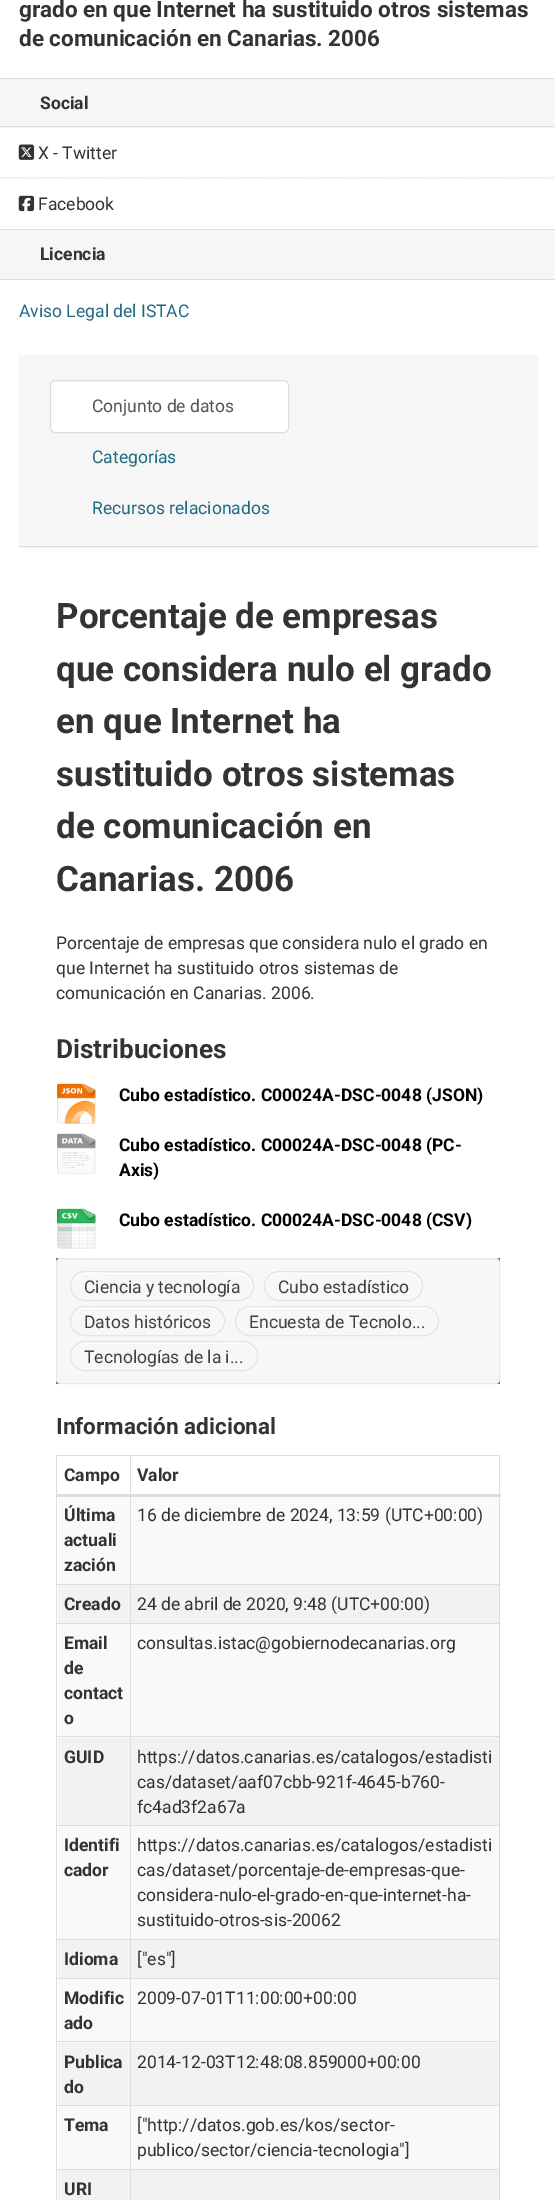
%!PS-Adobe-3.0
%%BoundingBox: 0 0 556 2200
%%LanguageLevel: 3
%%Pages: 1
%%EndComments
%%BeginProlog
/setink { dup -16 bitshift 255 div exch dup -8 bitshift 255 and 255 div exch 255 and 255 div setrgbcolor } def
/usefont { [ exch dup neg 0 0 3 -1 roll 0 0 ] selectfont } def
/rrect { 5 dict begin { /r /h /w /y /x } { exch def } forall
  x r add y moveto x w add y 2 copy h add r arct x w add y h add x 1 index r arct
  x y h add x y r arct x y 2 copy exch w add exch r arct closepath end } def
/drawimage { 5 dict begin { /h /w /y /x /name } { exch def } forall
  gsave x y translate w h scale
  w h 8 [w 0 0 h 0 0] name (r) file false 3 colorimage grestore end } def
%%EndProlog
%%BeginSetup
<< /PageSize [556 2200] >> setpagedevice
%%EndSetup
%%Page: 1 1
0 2200 translate 1 -1 scale
4 setmiterlimit
16#FFFFFF setink
0 0 556 2200 rectfill
/Roboto-Bold 22.5 usefont
16#333333 setink
19 17 moveto (grado en que Internet ha sustituido otros sistemas) show
19 46 moveto (de comunicación en Canarias. 2006) show
[
    [0 79 555 49 16#F6F6F6]
    [0 78 555 1 16#DDDDDD]
    [0 126 555 1 16#DDDDDD]
] { aload pop setink rectfill } forall
/Roboto-Bold 17.5 usefont
16#333333 setink
40 109 moveto (Social) show
16#DDDDDD setink
1.2 setlinewidth
[1.25 1.25] 0 setdash
0 178 moveto 555 178 lineto stroke
(img1.raw) 18 144 17 16 drawimage
/Roboto-Regular 17.5 usefont
16#333333 setink
38 159 moveto (X - Twitter) show
(img2.raw) 18 195 17 17 drawimage
38 210 moveto (Facebook) show
[
    [0 230 555 49 16#F6F6F6]
    [0 229 555 1 16#DDDDDD]
    [0 279 555 1 16#DDDDDD]
] { aload pop setink rectfill } forall
/Roboto-Bold 17.5 usefont
16#333333 setink
40 260 moveto (Licencia) show
/Roboto-Regular 17.5 usefont
16#206B82 setink
19 317 moveto (Aviso Legal del ISTAC) show
16#F6F6F6 setink
19 355 moveto 534 355 lineto 536 355 538 357 538 359 curveto 538 548 lineto 19 548 lineto closepath fill
16#DDDDDD setink
19 546 519 1 rectfill
16#FFFFFF setink
50.5 380.5 238 52 4.5 rrect gsave fill grestore
16#DDDDDD setink
1 setlinewidth
[] 0 setdash
stroke
16#555555 setink
92 412 moveto (Conjunto de datos) show
16#206B82 setink
92 463 moveto (Categorías) show
92 514 moveto (Recursos relacionados) show
/Roboto-Bold 35 usefont
16#333333 setink
[
    [(Porcentaje de empresas) 56 628]
    [(que considera nulo el grado) 56 681]
    [(en que Internet ha) 56 733]
    [(sustituido otros sistemas) 56 786]
    [(de comunicación en) 56 838]
    [(Canarias. 2006) 56 891]
] { aload pop moveto show } forall
/Roboto-Regular 17.5 usefont
[
    [(Porcentaje de empresas que considera nulo el grado en) 56 949]
    [(que Internet ha sustituido otros sistemas de) 56 974]
    [(comunicación en Canarias. 2006.) 56 999]
] { aload pop moveto show } forall
/Roboto-Bold 26.25 usefont
56 1058 moveto (Distribuciones) show
(img3.raw) 57 1083 39 41 drawimage
/Roboto-Bold 17.5 usefont
16#000000 setink
119 1101 moveto (Cubo estadístico. C00024A-DSC-0048 \(JSON\)) show
(img4.raw) 57 1133 39 41 drawimage
119 1151 moveto (Cubo estadístico. C00024A-DSC-0048 \(PC-) show
119 1176 moveto (Axis\)) show
(img5.raw) 57 1208 39 41 drawimage
119 1226 moveto (Cubo estadístico. C00024A-DSC-0048 \(CSV\)) show
16#338EB5 setink
56 1258 444 126 rectfill
16#F7F7F7 setink
56 1258 444 126 5 rrect fill
16#EDEDED setink
61 1260 moveto 495 1260 lineto 497 1260 499 1262 499 1264 curveto 499 1261 498 1259 495 1259 curveto 62 1259 lineto 60 1260 lineto 59 1261 lineto 58 1264 lineto 58 1262 59 1260 61 1260 curveto closepath fill
16#E9E9E9 setink
56.5 1258.5 443 125 4.5 rrect stroke
16#FFFFFF setink
85 1274 moveto 239 1274 lineto 246 1274 252 1280 252 1288 curveto 252 1291 251 1294 249 1296 curveto 252 1293 254 1288 253 1284 curveto 249 1267 223 1273 214 1273 curveto 110 1273 lineto 101 1273 70 1267 71 1287 curveto 71 1280 77 1274 85 1274 curveto closepath fill
16#E4E4E4 setink
70.5 1271.5 183 29 14.5 rrect stroke
/Roboto-Regular 17.5 usefont
16#414141 setink
84 1293 moveto (Ciencia y tecnología) show
16#FFFFFF setink
279 1274 moveto 408 1274 lineto 415 1274 421 1280 421 1287 curveto 422 1268 396 1273 386 1273 curveto 300 1273 lineto 290 1273 264 1268 265 1287 curveto 265 1280 271 1274 279 1274 curveto closepath fill
16#E4E4E4 setink
264.5 1271.5 158 29 14.5 rrect stroke
16#414141 setink
278 1293 moveto (Cubo estadístico) show
16#FFFFFF setink
85 1309 moveto 195 1309 lineto 207 1308 224 1307 224 1322 curveto 224 1303 200 1308 190 1308 curveto 106 1308 lineto 96 1308 77 1304 72 1316 curveto 71 1319 71 1322 72 1325 curveto 70 1318 75 1309 85 1309 curveto closepath fill
16#E4E4E4 setink
70.5 1306.5 154 29 14.5 rrect stroke
16#414141 setink
84 1328 moveto (Datos históricos) show
16#FFFFFF setink
250 1309 moveto 424 1309 lineto 431 1309 438 1315 438 1322 curveto 438 1301 404 1308 395 1308 curveto 279 1308 lineto 270 1308 236 1301 236 1322 curveto 236 1315 242 1309 250 1309 curveto closepath fill
16#E4E4E4 setink
235.5 1306.5 203 29 14.5 rrect stroke
16#414141 setink
249 1328 moveto (Encuesta de Tecnolo...) show
16#FFFFFF setink
85 1344 moveto 242 1344 lineto 250 1344 256 1350 256 1357 curveto 257 1337 226 1343 216 1343 curveto 111 1343 lineto 101 1343 70 1337 71 1357 curveto 71 1350 77 1344 85 1344 curveto closepath fill
16#E4E4E4 setink
70.5 1341.5 187 29 14.5 rrect stroke
16#414141 setink
84 1363 moveto (Tecnologías de la i...) show
/Roboto-Bold 22.5 usefont
16#333333 setink
56 1434 moveto (Información adicional) show
[
    [56 1455 444 1 16#DDDDDD]
    [499 1455 1 745 16#DDDDDD]
    [56 1455 1 745 16#DDDDDD]
] { aload pop setink rectfill } forall
/Roboto-Bold 17.5 usefont
16#333333 setink
64 1481 moveto (Campo) show
[
    [58 1497 441 87 16#F9F9F9]
    [130 1584 370 1 16#DDDDDD]
    [130 1623 370 1 16#DDDDDD]
    [58 1624 441 114 16#F9F9F9]
    [130 1736 370 1 16#DDDDDD]
    [130 1825 370 1 16#DDDDDD]
    [58 1826 441 113 16#F9F9F9]
    [130 1939 370 1 16#DDDDDD]
    [130 1978 370 1 16#DDDDDD]
    [58 1979 441 64 16#F9F9F9]
    [130 2041 370 1 16#DDDDDD]
    [130 2105 370 1 16#DDDDDD]
    [58 2106 441 63 16#F9F9F9]
    [130 2169 370 1 16#DDDDDD]
    [130 2169 1 31 16#DDDDDD]
    [56 2169 75 1 16#DDDDDD]
    [130 2105 1 65 16#DDDDDD]
    [56 2105 75 1 16#DDDDDD]
    [130 2041 1 65 16#DDDDDD]
    [56 2041 75 1 16#DDDDDD]
    [130 1978 1 65 16#DDDDDD]
    [56 1978 75 1 16#DDDDDD]
    [130 1939 1 40 16#DDDDDD]
    [56 1939 75 1 16#DDDDDD]
    [130 1825 1 115 16#DDDDDD]
    [56 1825 75 1 16#DDDDDD]
    [130 1736 1 90 16#DDDDDD]
    [56 1736 75 1 16#DDDDDD]
    [130 1623 1 115 16#DDDDDD]
    [56 1623 75 1 16#DDDDDD]
    [130 1584 1 40 16#DDDDDD]
    [56 1584 75 1 16#DDDDDD]
    [130 1455 1 130 16#DDDDDD]
    [56 1494 445 3 16#DDDDDD]
] { aload pop setink rectfill } forall
16#333333 setink
[
    [(Valor) 137 1481]
    [(Última) 64 1521]
    [(actuali) 64 1546]
    [(zación) 64 1571]
] { aload pop moveto show } forall
/Roboto-Regular 17.5 usefont
137 1521 moveto (16 de diciembre de 2024, 13:59 \(UTC+00:00\)) show
16#F2F2F2 setink
58 1585 72 38 rectfill
/Roboto-Bold 17.5 usefont
16#333333 setink
64 1610 moveto (Creado) show
16#F2F2F2 setink
131 1585 368 38 rectfill
/Roboto-Regular 17.5 usefont
16#333333 setink
137 1610 moveto (24 de abril de 2020, 9:48 \(UTC+00:00\)) show
/Roboto-Bold 17.5 usefont
[
    [(Email) 64 1649]
    [(de) 64 1674]
    [(contact) 64 1699]
    [(o) 64 1724]
] { aload pop moveto show } forall
/Roboto-Regular 17.5 usefont
137 1649 moveto (consultas.istac@gobiernodecanarias.org) show
16#F2F2F2 setink
58 1738 72 87 rectfill
/Roboto-Bold 17.5 usefont
16#333333 setink
64 1763 moveto (GUID) show
16#F2F2F2 setink
131 1738 368 87 rectfill
/Roboto-Regular 17.5 usefont
16#333333 setink
[
    [(https://datos.canarias.es/catalogos/estadisti) 137 1763]
    [(cas/dataset/aaf07cbb-921f-4645-b760-) 137 1788]
    [(fc4ad3f2a67a) 137 1813]
] { aload pop moveto show } forall
/Roboto-Bold 17.5 usefont
64 1851 moveto (Identifi) show
64 1876 moveto (cador) show
/Roboto-Regular 17.5 usefont
[
    [(https://datos.canarias.es/catalogos/estadisti) 137 1851]
    [(cas/dataset/porcentaje-de-empresas-que-) 137 1876]
    [(considera-nulo-el-grado-en-que-internet-ha-) 137 1901]
    [(sustituido-otros-sis-20062) 137 1926]
] { aload pop moveto show } forall
16#F2F2F2 setink
58 1940 72 38 rectfill
/Roboto-Bold 17.5 usefont
16#333333 setink
64 1965 moveto (Idioma) show
16#F2F2F2 setink
131 1940 368 38 rectfill
/Roboto-Regular 17.5 usefont
16#333333 setink
137 1965 moveto (["es"]) show
/Roboto-Bold 17.5 usefont
64 2004 moveto (Modific) show
64 2029 moveto (ado) show
/Roboto-Regular 17.5 usefont
137 2004 moveto (2009-07-01T11:00:00+00:00) show
16#F2F2F2 setink
58 2043 72 62 rectfill
/Roboto-Bold 17.5 usefont
16#333333 setink
64 2068 moveto (Publica) show
64 2093 moveto (do) show
16#F2F2F2 setink
131 2043 368 62 rectfill
/Roboto-Regular 17.5 usefont
16#333333 setink
137 2068 moveto (2014-12-03T12:48:08.859000+00:00) show
/Roboto-Bold 17.5 usefont
64 2131 moveto (Tema) show
/Roboto-Regular 17.5 usefont
137 2131 moveto (["http://datos.gob.es/kos/sector-) show
137 2156 moveto (publico/sector/ciencia-tecnologia"]) show
16#F2F2F2 setink
58 2170 72 30 rectfill
/Roboto-Bold 17.5 usefont
16#333333 setink
64 2195 moveto (URI) show
16#F2F2F2 setink
131 2170 368 30 rectfill
showpage
%%EOF
